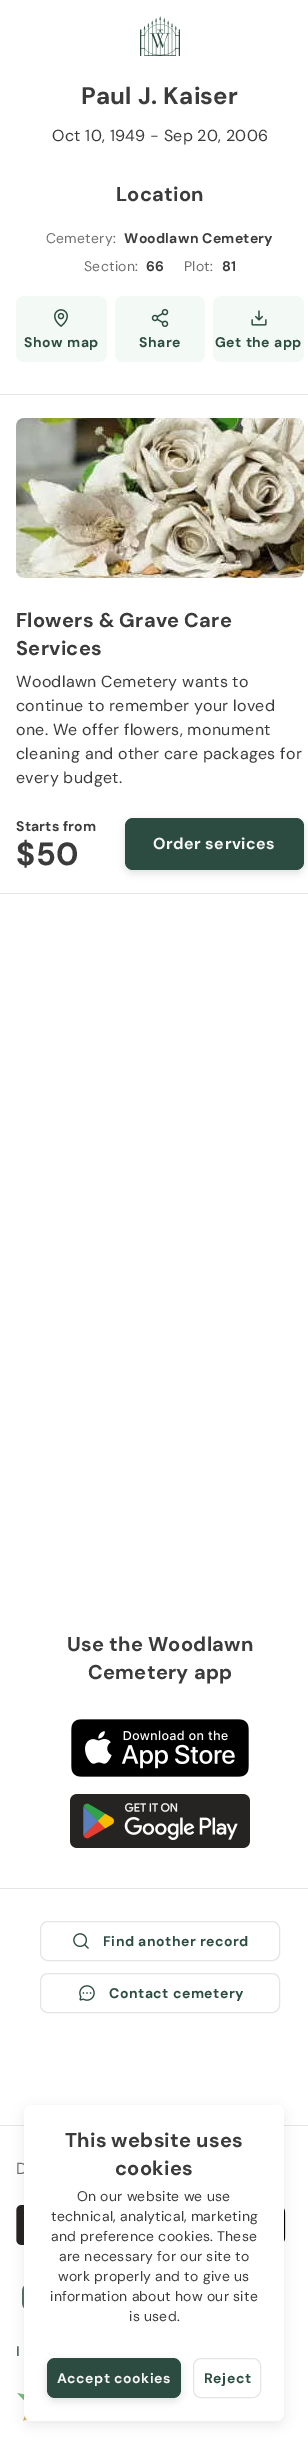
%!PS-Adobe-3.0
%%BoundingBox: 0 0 308 2445
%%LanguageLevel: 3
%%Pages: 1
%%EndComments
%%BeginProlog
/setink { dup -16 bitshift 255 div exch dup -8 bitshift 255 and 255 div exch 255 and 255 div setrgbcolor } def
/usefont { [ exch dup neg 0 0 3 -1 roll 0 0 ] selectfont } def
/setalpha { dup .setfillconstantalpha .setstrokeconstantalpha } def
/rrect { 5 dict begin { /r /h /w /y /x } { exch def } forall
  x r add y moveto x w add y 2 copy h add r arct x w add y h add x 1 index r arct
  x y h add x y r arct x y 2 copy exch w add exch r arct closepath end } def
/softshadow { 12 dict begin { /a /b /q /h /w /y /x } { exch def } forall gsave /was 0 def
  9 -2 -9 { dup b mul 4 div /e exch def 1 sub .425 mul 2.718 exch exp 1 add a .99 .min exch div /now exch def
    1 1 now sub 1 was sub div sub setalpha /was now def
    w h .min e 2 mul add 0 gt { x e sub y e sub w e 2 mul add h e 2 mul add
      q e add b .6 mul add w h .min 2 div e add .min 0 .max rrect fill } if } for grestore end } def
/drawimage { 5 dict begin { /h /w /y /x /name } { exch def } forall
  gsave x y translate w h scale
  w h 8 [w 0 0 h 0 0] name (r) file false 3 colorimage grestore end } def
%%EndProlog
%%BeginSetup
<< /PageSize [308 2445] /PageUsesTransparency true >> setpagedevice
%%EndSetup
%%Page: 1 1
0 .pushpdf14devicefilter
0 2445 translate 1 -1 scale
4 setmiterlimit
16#FFFFFF setink
0 0 308 2445 rectfill
(img1.raw) 140 16 40 40 drawimage
/DMSans-Bold 24 usefont
16#3B3B3B setink
81 104 moveto 0.25 0 (Paul J. Kaiser) ashow
/DMSans-Regular 16 usefont
52 141 moveto 0.3 0 (Oct 10, 1949 - Sep 20, 2006) ashow
/DMSans-Bold 20 usefont
116 201 moveto 0.25 0 (Location) ashow
/DMSans-Regular 14 usefont
16#707070 setink
46 243 moveto 0.25 0 (Cemetery:) ashow
/DMSans-Bold 14 usefont
16#3B3B3B setink
124 243 moveto 0.25 0 (Woodlawn Cemetery) ashow
/DMSans-Regular 14 usefont
16#707070 setink
84 271 moveto 0.25 0 (Section:) ashow
/DMSans-Bold 14 usefont
16#3B3B3B setink
146 271 moveto 0.25 0 (66) ashow
/DMSans-Regular 14 usefont
16#707070 setink
184 271 moveto 0.25 0 (Plot:) ashow
/DMSans-Bold 14 usefont
16#3B3B3B setink
222 271 moveto 0.25 0 (81) ashow
16#F3F9F5 setink
16 296 91 66 8 rrect fill
(img2.raw) 54 309 14 18 drawimage
16#2C4C41 setink
24 347 moveto 0.5 0 (Show map) ashow
16#F3F9F5 setink
115 296 90 66 8 rrect fill
(img3.raw) 151 309 18 18 drawimage
16#2C4C41 setink
139 347 moveto 0.5 0 (Share) ashow
16#F3F9F5 setink
213 296 91 66 8 rrect fill
(img4.raw) 251 310 16 16 drawimage
16#2C4C41 setink
215 347 moveto 0.5 0 (Get the app) ashow
16#E5E5E5 setink
0 394 308 1 rectfill
0 893 308 1 rectfill
(img5.raw) 16 418 288 160 drawimage
/DMSans-Bold 20 usefont
16#3B3B3B setink
16 627 moveto 0.25 0 (Flowers & Grave Care) ashow
16 655 moveto 0.25 0 (Services) ashow
/DMSans-Regular 16 usefont
16 687 moveto 0.3 0 (Woodlawn Cemetery wants to) ashow
16 711 moveto 0.3 0 (continue to remember your loved) ashow
16 735 moveto 0.3 0 (one. We offer flowers, monument) ashow
16 759 moveto 0.3 0 (cleaning and other care packages for) ashow
16 783 moveto 0.3 0 (every budget.) ashow
/DMSans-Bold 14 usefont
16 831 moveto 0.25 0 (Starts from) ashow
/DMSans-Bold 32 usefont
16 865 moveto 0.25 0 ($50) ashow
16#000000 setink
125 821 179 52 8 4 0.12 softshadow
16#2C4C41 setink
125 818 179 52 8 rrect fill
/DMSans-Bold 16 usefont
16#F7F7F7 setink
153 849 moveto 0.5 0 (Order services) ashow
16#E5E5E5 setink
0 1888 308 1 rectfill
/DMSans-Bold 20 usefont
16#3B3B3B setink
67 1651 moveto 0.25 0 (Use the Woodlawn) ashow
88 1679 moveto 0.25 0 (Cemetery app) ashow
(img6.raw) 71 1719 178 58 drawimage
(img7.raw) 70 1794 180 54 drawimage
16#E5E5E5 setink
40.5 1921.5 239 39 7.5 rrect stroke
(img8.raw) 73 1933 16 16 drawimage
/DMSans-Bold 14 usefont
16#2C4C41 setink
103 1946 moveto 0.5 0 (Find another record) ashow
16#E5E5E5 setink
40.5 1973.5 239 39 7.5 rrect stroke
(img9.raw) 79 1985 16 16 drawimage
16#2C4C41 setink
109 1998 moveto 0.5 0 (Contact cemetery) ashow
16#E5E5E5 setink
0 2125 308 1 rectfill
/DMSans-Regular 16 usefont
16#707070 setink
16 2174 moveto 0.3 0 (D) ashow
(img10.raw) 16 2205 8 40 drawimage
(img11.raw) 284 2208 2 34 drawimage
(img12.raw) 22 2285 2 24 drawimage
/DMSans-Bold 14 usefont
16#567067 setink
16 2356 moveto 0.25 0 (I) ashow
(img13.raw) 17 2393 11 28 drawimage
16#000000 setink
24 2109 260 316 8 6 0.08 softshadow
16#FFFFFF setink
24 2105 260 316 8 rrect fill
/DMSans-Bold 20 usefont
16#3B3B3B setink
65 2147 moveto 0.25 0 (This website uses) ashow
115 2175 moveto 0.25 0 (cookies) ashow
/DMSans-Regular 14 usefont
77 2201 moveto 0.25 0 (On our website we use) ashow
51 2221 moveto 0.25 0 (technical, analytical, marketing) ashow
51 2241 moveto 0.25 0 (and preference cookies. These) ashow
59 2261 moveto 0.25 0 (are necessary for our site to) ashow
58 2281 moveto 0.25 0 (work properly and to give us) ashow
50 2301 moveto 0.25 0 (information about how our site) ashow
129 2321 moveto 0.25 0 (is used.) ashow
16#000000 setink
47 2361 134 40 8 4 0.12 softshadow
16#2C4C41 setink
47 2358 134 40 8 rrect fill
/DMSans-Bold 14 usefont
16#F7F7F7 setink
57 2383 moveto 0.5 0 (Accept cookies) ashow
16#E5E5E5 setink
193.5 2358.5 67 39 7.5 rrect stroke
16#2C4C41 setink
204 2383 moveto 0.5 0 (Reject) ashow
.poppdf14devicefilter showpage
%%EOF
